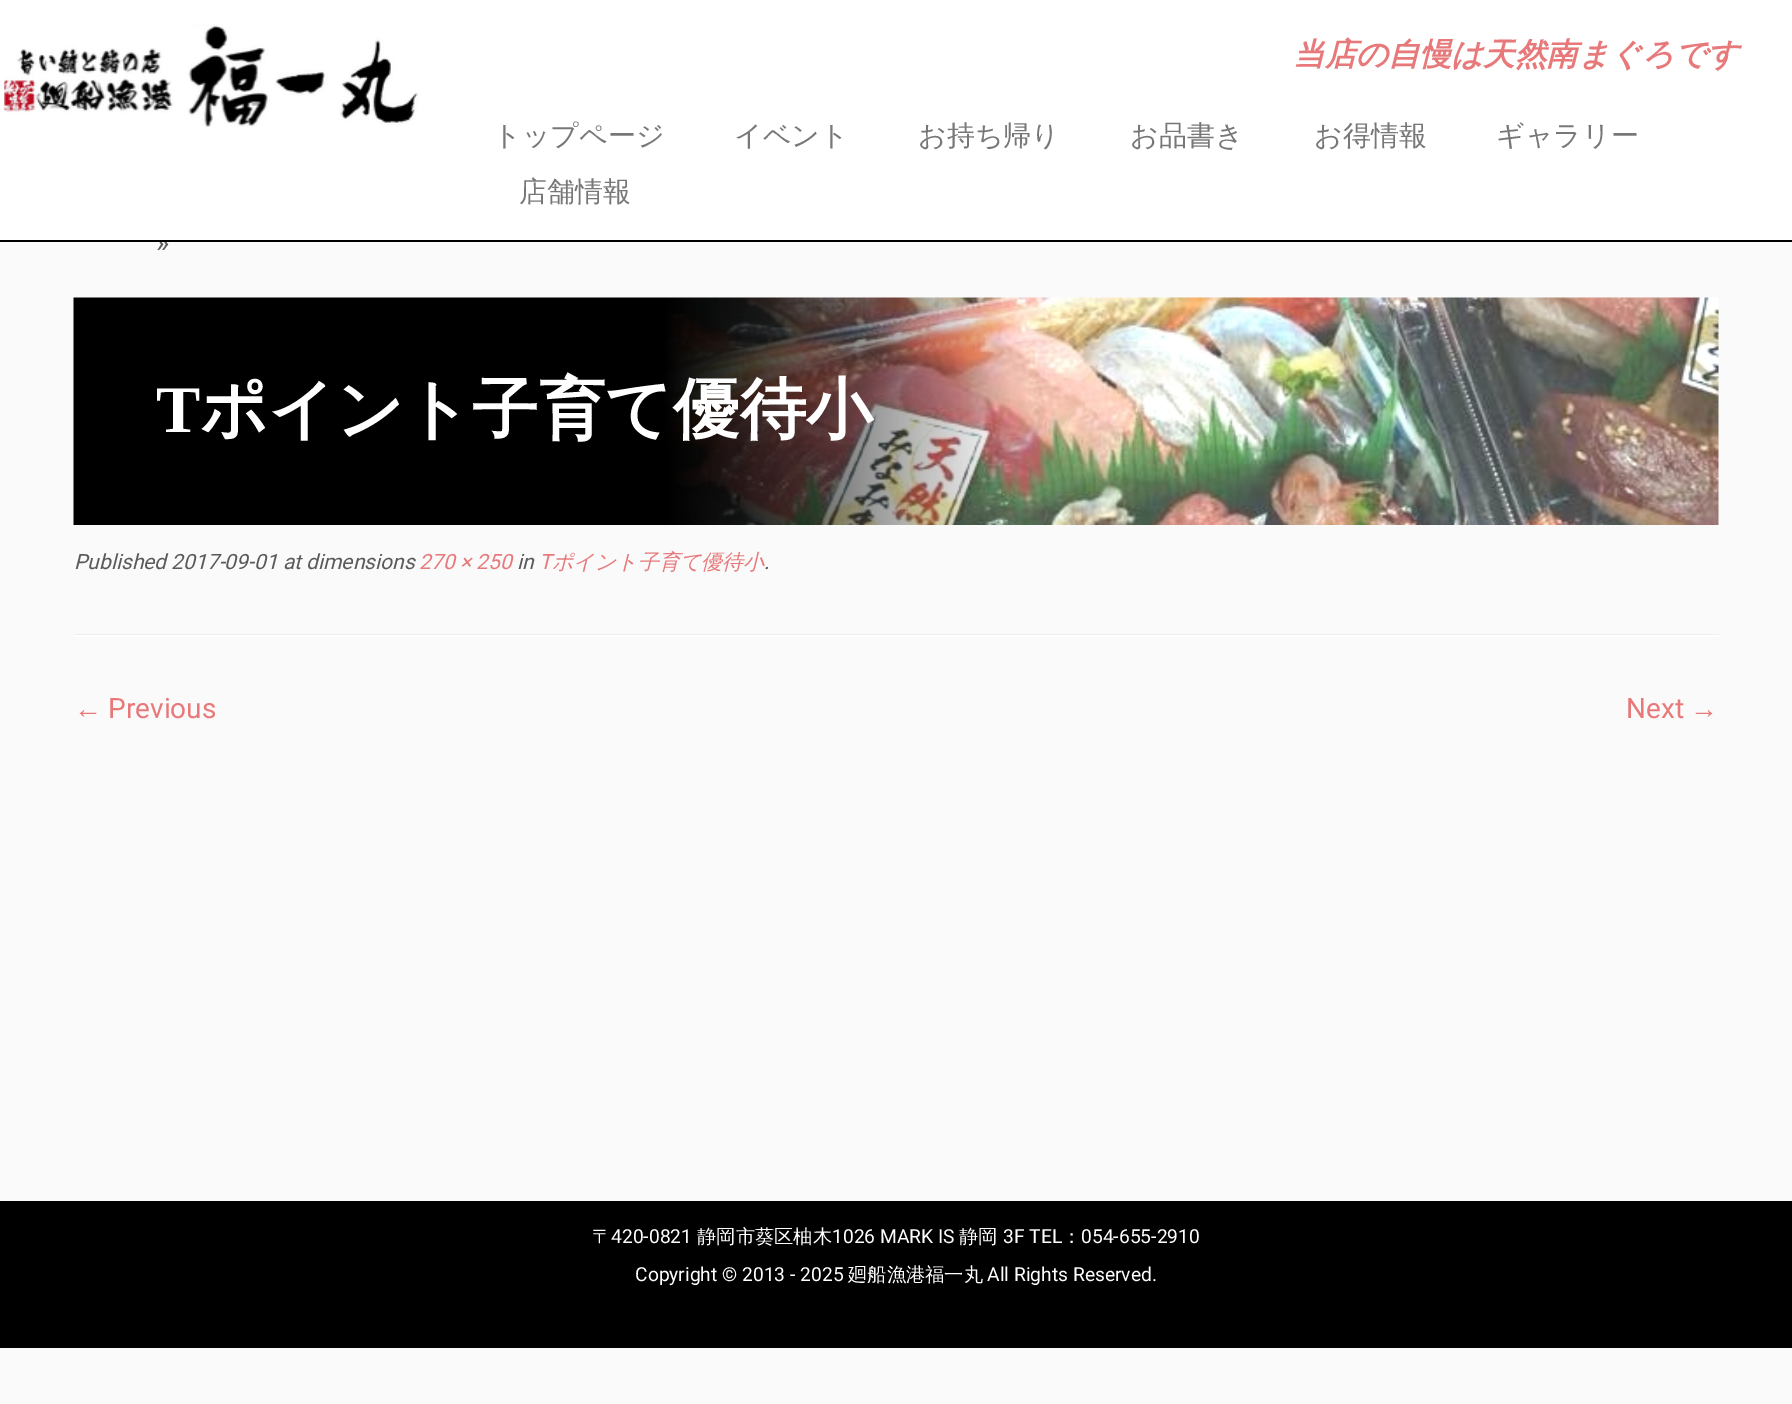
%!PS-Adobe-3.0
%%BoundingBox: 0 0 1792 1404
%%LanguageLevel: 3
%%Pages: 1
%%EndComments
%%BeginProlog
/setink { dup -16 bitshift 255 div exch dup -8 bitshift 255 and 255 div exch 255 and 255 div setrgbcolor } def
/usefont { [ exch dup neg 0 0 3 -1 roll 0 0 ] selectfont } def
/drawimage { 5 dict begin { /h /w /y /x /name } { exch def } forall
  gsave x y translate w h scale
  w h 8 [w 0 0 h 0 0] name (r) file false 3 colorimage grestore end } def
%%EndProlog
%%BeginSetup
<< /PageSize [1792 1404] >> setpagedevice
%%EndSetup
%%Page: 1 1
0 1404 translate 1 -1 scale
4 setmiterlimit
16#FAFAFA setink
0 0 1792 1404 rectfill
/Roboto-Regular 28 usefont
16#5A5A5A setink
156 252 moveto (») show
16#FFFFFF setink
0 0 1792 240 rectfill
16#000000 setink
0 240 1792 2 rectfill
(img1.raw) 3 23 417 104 drawimage
/WenQuanYiZenHei-BoldItalic 31.5 usefont
16#E7797A setink
1293 65 moveto (当店の自慢は天然南まぐろです) show
/WenQuanYiZenHei-Medium 28 usefont
16#777777 setink
[
    [(トップページ) 493 145]
    [(イベント) 734 145]
    [(お持ち帰り) 918 145]
    [(お品書き) 1130 145]
    [(お得情報) 1314 145]
    [(ギャラリー) 1496 145]
    [(店舗情報) 519 201]
] { aload pop moveto show } forall
(img2.raw) 73 297 1646 228 drawimage
/LiberationSerif-Bold 66.5 usefont
16#FFFFFF setink
156 432 moveto (T) show
/WenQuanYiZenHei-Bold 66.5 usefont
200 432 moveto (ポイント子育て優待小) show
/Roboto-Italic 21 usefont
16#5A5A5A setink
74 569 moveto (Published 2017-09-01 at dimensions) show
16#E7797A setink
419 569 moveto (270 × 250) show
16#5A5A5A setink
517 569 moveto (in) show
16#E7797A setink
539 569 moveto (T) show
/WenQuanYiZenHei-MediumItalic 21 usefont
552 569 moveto (ポイント子育て優待小) show
/Roboto-Italic 21 usefont
16#5A5A5A setink
764 569 moveto (.) show
16#EEEEEE setink
74 634 1645 1 rectfill
16#FFFFFF setink
74 635 1645 2 rectfill
/LiberationSerif-Regular 28 usefont
16#E7797A setink
74 718 moveto (←) show
/Roboto-Regular 28 usefont
108 718 moveto (Previous) show
1626 718 moveto (Next) show
/LiberationSerif-Regular 28 usefont
1690 718 moveto (→) show
16#000000 setink
0 1201 1792 147 rectfill
/WenQuanYiZenHei-Medium 19.25 usefont
16#FFFFFF setink
592 1243 moveto (〒) show
/Roboto-Regular 19.25 usefont
611 1243 moveto (420-0821) show
/WenQuanYiZenHei-Medium 19.25 usefont
697 1243 moveto (静岡市葵区柚木) show
/Roboto-Regular 19.25 usefont
832 1243 moveto (1026 MARK IS) show
/WenQuanYiZenHei-Medium 19.25 usefont
959 1243 moveto (静岡) show
/Roboto-Regular 19.25 usefont
1003 1243 moveto (3F TEL) show
/WenQuanYiZenHei-Medium 19.25 usefont
1062 1243 moveto (：) show
/Roboto-Regular 19.25 usefont
1081 1243 moveto (054-655-2910) show
635 1281 moveto (Copyright © 2013 - 2025) show
/WenQuanYiZenHei-Medium 19.25 usefont
848 1281 moveto (廻船漁港福一丸) show
/Roboto-Regular 19.25 usefont
987 1281 moveto (All Rights Reserved.) show
showpage
%%EOF
